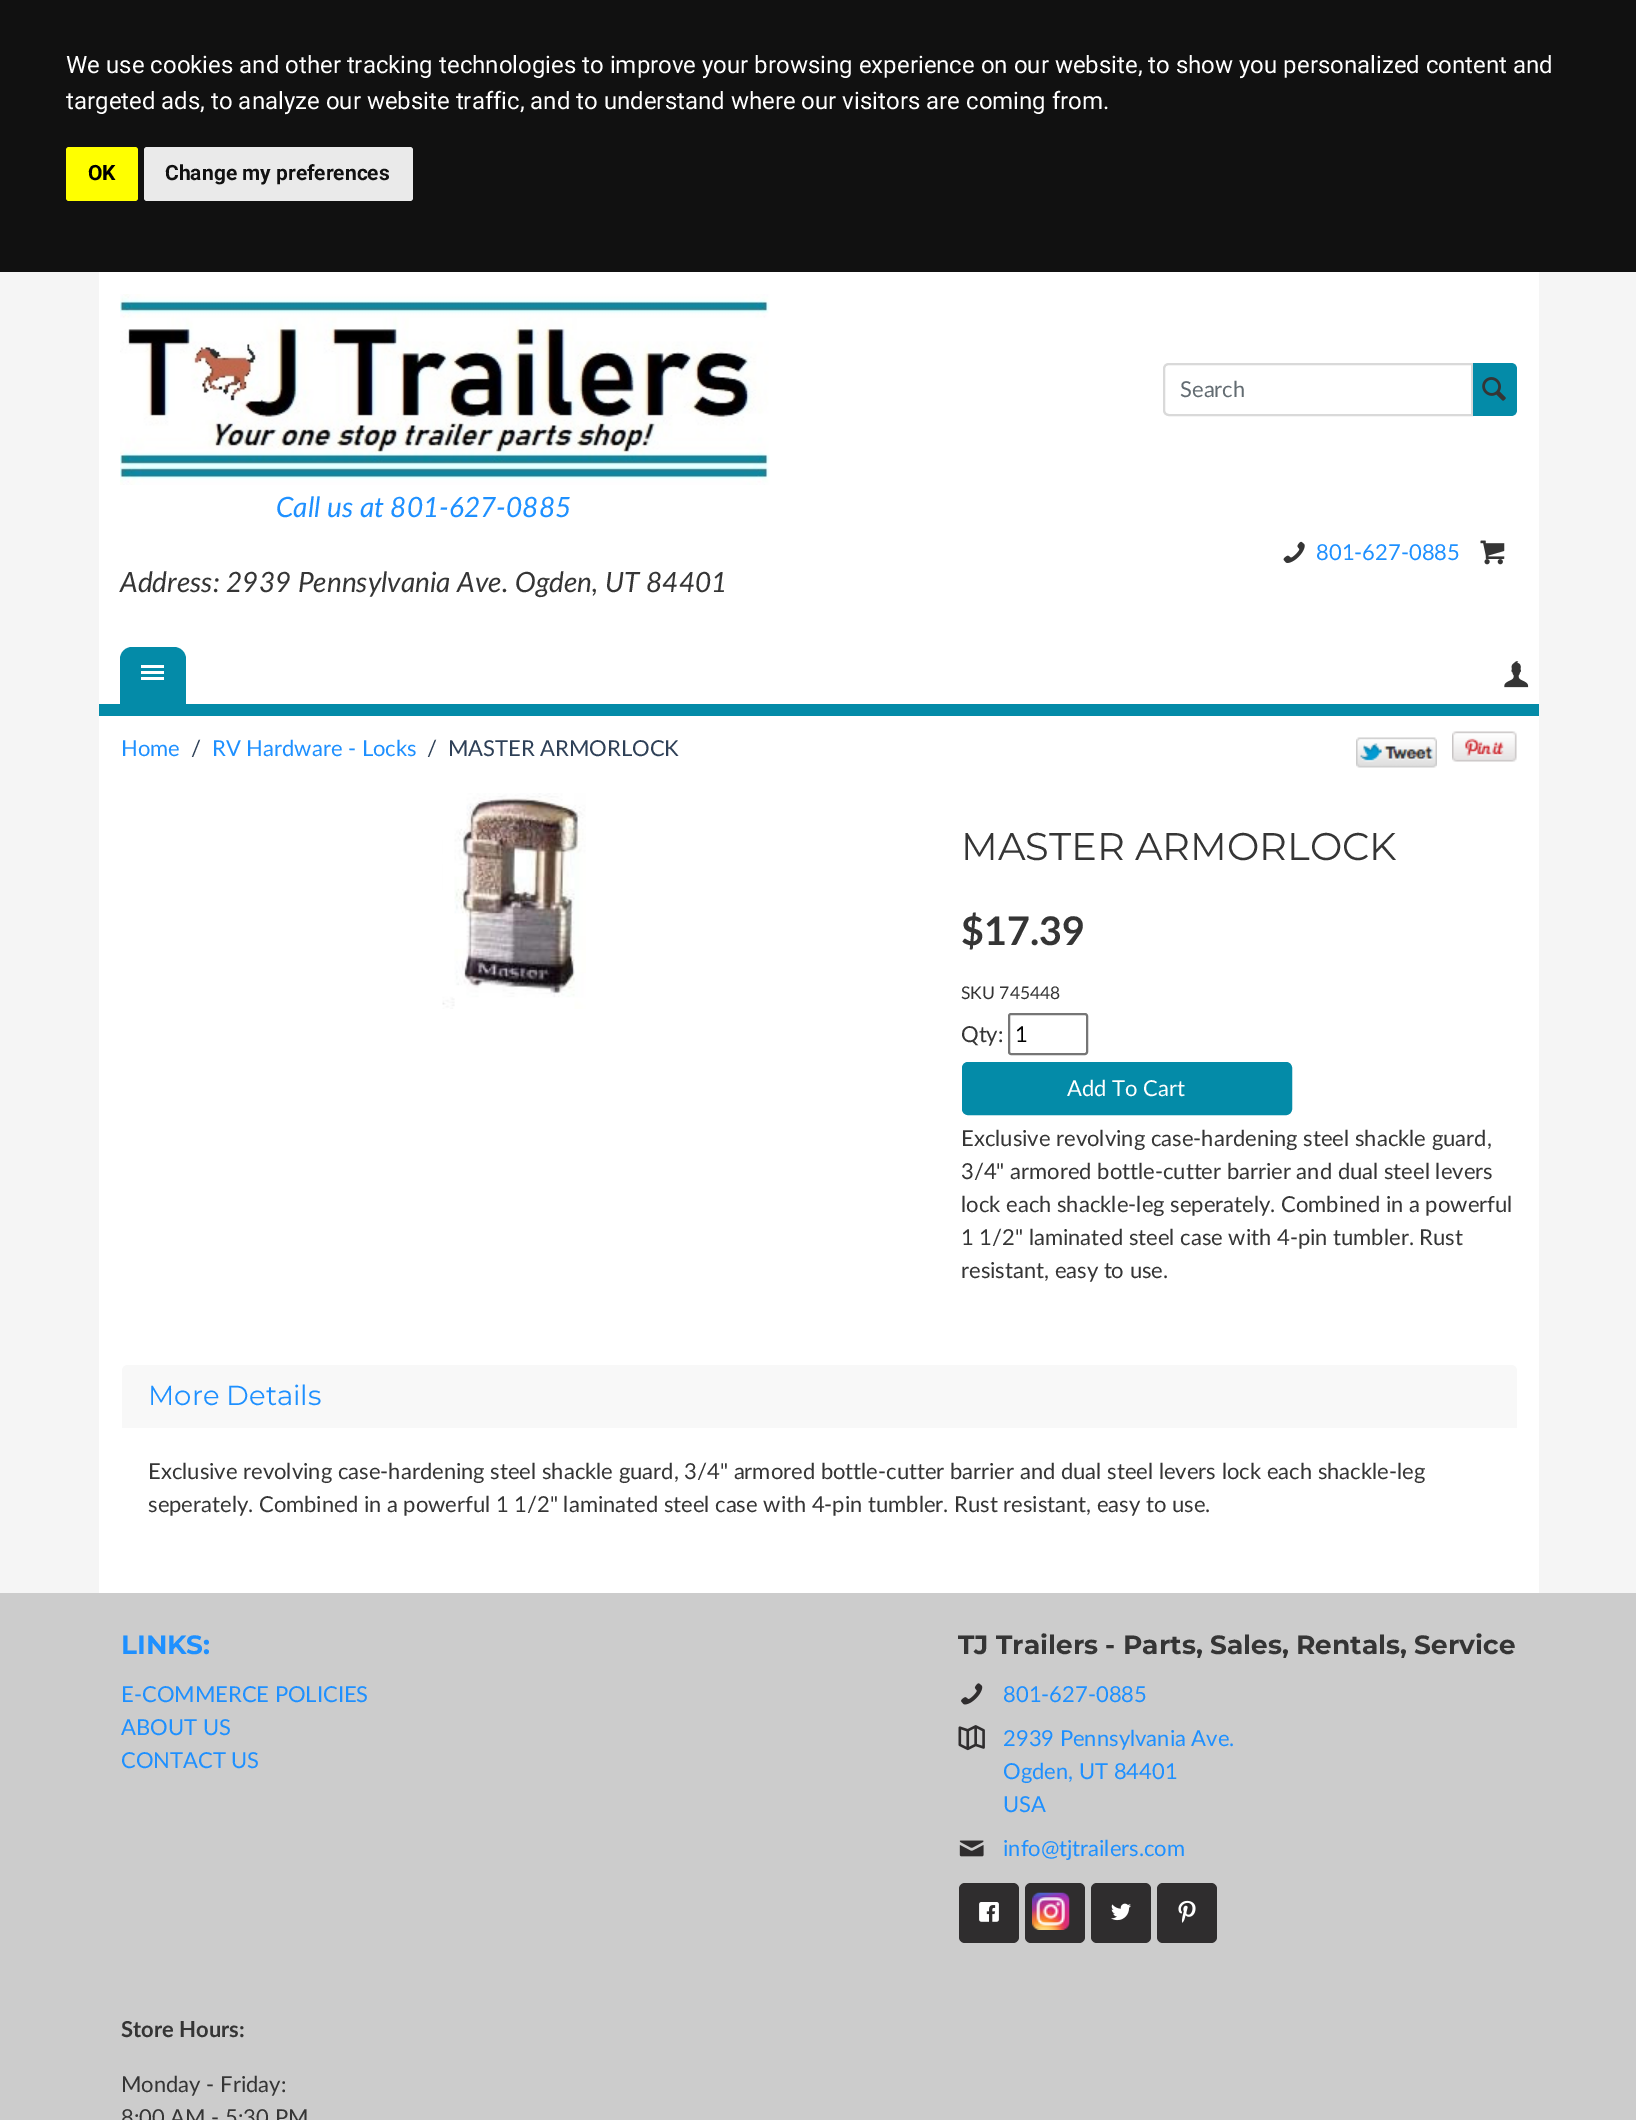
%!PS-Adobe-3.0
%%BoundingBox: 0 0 1636 2120
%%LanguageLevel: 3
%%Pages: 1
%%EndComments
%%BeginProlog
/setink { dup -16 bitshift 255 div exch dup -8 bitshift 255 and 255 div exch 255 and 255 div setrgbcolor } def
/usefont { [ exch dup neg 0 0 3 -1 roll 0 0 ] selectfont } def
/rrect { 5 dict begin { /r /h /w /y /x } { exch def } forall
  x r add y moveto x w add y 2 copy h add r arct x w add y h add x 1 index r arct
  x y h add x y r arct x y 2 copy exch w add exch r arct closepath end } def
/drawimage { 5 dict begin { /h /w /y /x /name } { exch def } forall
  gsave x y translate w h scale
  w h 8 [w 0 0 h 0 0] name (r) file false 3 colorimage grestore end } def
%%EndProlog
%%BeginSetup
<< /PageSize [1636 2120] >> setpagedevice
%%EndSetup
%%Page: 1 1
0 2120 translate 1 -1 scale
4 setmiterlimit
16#F5F5F5 setink
0 0 1636 2120 rectfill
16#111111 setink
0 0 1636 272 rectfill
/Roboto-Regular 24 usefont
16#FFFFFF setink
66 73 moveto (We use cookies and other tracking technologies to improve your browsing experience on our website, to show you personalized content and) show
66 109 moveto (targeted ads, to analyze our website traffic, and to understand where our visitors are coming from.) show
16#FFFF00 setink
66 147 72 54 3 rrect fill
/Roboto-Bold 21 usefont
16#000000 setink
88 180 moveto (OK) show
16#EAEAEA setink
144 147 269 54 3 rrect fill
16#111111 setink
165 180 moveto (Change my preferences) show
16#FFFFFF setink
99 272 1440 432 rectfill
(img1.raw) 120 294 650 191 drawimage
16#D9D9D9 setink
2 setlinewidth
1169 364 moveto 1472 364 lineto 1472 415 lineto 1169 415 lineto 1166 415 1164 413 1164 410 curveto 1164 369 lineto 1164 366 1166 364 1169 364 curveto closepath stroke
/Lato-Regular 22 usefont
16#636C72 setink
1180 397 moveto (Search) show
16#048BA8 setink
1473 363 moveto 1511 363 lineto 1514.5 363 1517 365.5 1517 369 curveto 1517 410 lineto 1517 413.5 1514.5 416 1511 416 curveto 1473 416 lineto closepath fill
(img2.raw) 1482 377 24 24 drawimage
/Lato-Italic 28 usefont
16#1E90FF setink
276 517 moveto (Call us at 801-627-0885) show
16#353535 setink
120 592 moveto (Address: 2939 Pennsylvania Ave. Ogden, UT 84401) show
(img3.raw) 1283 541 22 22 drawimage
/Lato-Regular 22 usefont
16#1E90FF setink
1316 560 moveto (801-627-0885) show
(img4.raw) 1480 540 25 25 drawimage
16#048BA8 setink
132 647 moveto 174 647 lineto 180.5 647 186 652.5 186 659 curveto 186 704 lineto 120 704 lineto 120 659 lineto 120 652.5 125.5 647 132 647 curveto closepath fill
[
    [141 665 23 3 16#FFFFFF]
    [141 671 23 3 16#FFFFFF]
    [141 677 23 3 16#FFFFFF]
] { aload pop setink rectfill } forall
(img5.raw) 1504 661 25 27 drawimage
16#048BA8 setink
99 704 1440 12 rectfill
16#FFFFFF setink
99 716 1440 877 rectfill
16#1E90FF setink
121 756 moveto (Home) show
16#2E4057 setink
191 756 moveto (/) show
16#1E90FF setink
212 756 moveto (RV Hardware - Locks) show
16#2E4057 setink
427 756 moveto (/) show
448 756 moveto (MASTER ARMORLOCK) show
(img6.raw) 1356 737 81 31 drawimage
(img7.raw) 1452 731 65 31 drawimage
(img8.raw) 442 793 144 216 drawimage
/Montserrat-Regular 38.5 usefont
16#353535 setink
961 860 moveto (MASTER ARMORLOCK) show
/Lato-Bold 39.5 usefont
961 945 moveto ($17.39) show
/Lato-Regular 17.5 usefont
961 999 moveto (SKU 745448) show
/Lato-Regular 22 usefont
961 1042 moveto (Qty:) show
16#767676 setink
1009 1014 78 40 2 rrect stroke
16#000000 setink
1015 1042 moveto (1) show
16#048BA8 setink
963 1063 328 51 5 rrect gsave fill grestore
stroke
16#FFFFFF setink
1067 1096 moveto (Add To Cart) show
16#353535 setink
[
    [(Exclusive revolving case-hardening steel shackle guard,) 961 1146]
    [(3/4" armored bottle-cutter barrier and dual steel levers) 961 1179]
    [(lock each shackle-leg seperately. Combined in a powerful) 961 1212]
    [(1 1/2" laminated steel case with 4-pin tumbler. Rust) 961 1245]
    [(resistant, easy to use.) 961 1278]
] { aload pop moveto show } forall
16#F8F8F8 setink
128 1365 moveto 1511 1365 lineto 1514.5 1365 1517 1367.5 1517 1371 curveto 1517 1428 lineto 122 1428 lineto 122 1371 lineto 122 1367.5 124.5 1365 128 1365 curveto closepath fill
/Montserrat-Regular 27.5 usefont
16#1E90FF setink
148 1405 moveto (More Details) show
/Lato-Regular 22 usefont
16#353535 setink
148 1479 moveto (Exclusive revolving case-hardening steel shackle guard, 3/4" armored bottle-cutter barrier and dual steel levers lock each shackle-leg) show
148 1512 moveto (seperately. Combined in a powerful 1 1/2" laminated steel case with 4-pin tumbler. Rust resistant, easy to use.) show
16#CCCCCC setink
0 1593 1636 527 rectfill
/Montserrat-Bold 26.4 usefont
16#1E90FF setink
121 1654 moveto (LINKS:) show
/Lato-Regular 22 usefont
[
    [(E-COMMERCE POLICIES) 121 1702]
    [(ABOUT US) 121 1735]
    [(CONTACT US) 121 1768]
] { aload pop moveto show } forall
/Montserrat-Bold 26.4 usefont
16#353535 setink
958 1654 moveto (TJ Trailers - Parts, Sales, Rentals, Service) show
(img9.raw) 961 1683 22 22 drawimage
/Lato-Regular 22 usefont
16#1E90FF setink
1003 1702 moveto (801-627-0885) show
(img10.raw) 958 1725 27 26 drawimage
[
    [(2939 Pennsylvania Ave.) 1003 1746]
    [(Ogden, UT 84401) 1003 1779]
    [(USA) 1003 1812]
] { aload pop moveto show } forall
(img11.raw) 959 1840 25 17 drawimage
1003 1856 moveto (info@tjtrailers.com) show
16#2F2D2E setink
959 1883 60 60 6 rrect fill
(img12.raw) 979 1902 20 20 drawimage
1025 1883 60 60 6 rrect fill
(img13.raw) 1032 1892 38 38 drawimage
1091 1883 60 60 6 rrect fill
(img14.raw) 1111 1903 20 18 drawimage
1157 1883 60 60 6 rrect fill
(img15.raw) 1178 1900 18 23 drawimage
/Lato-Bold 22 usefont
16#353535 setink
121 2037 moveto (Store Hours:) show
/Lato-Regular 22 usefont
121 2092 moveto (Monday - Friday:) show
121 2125 moveto (8:00 AM - 5:30 PM) show
showpage
%%EOF
